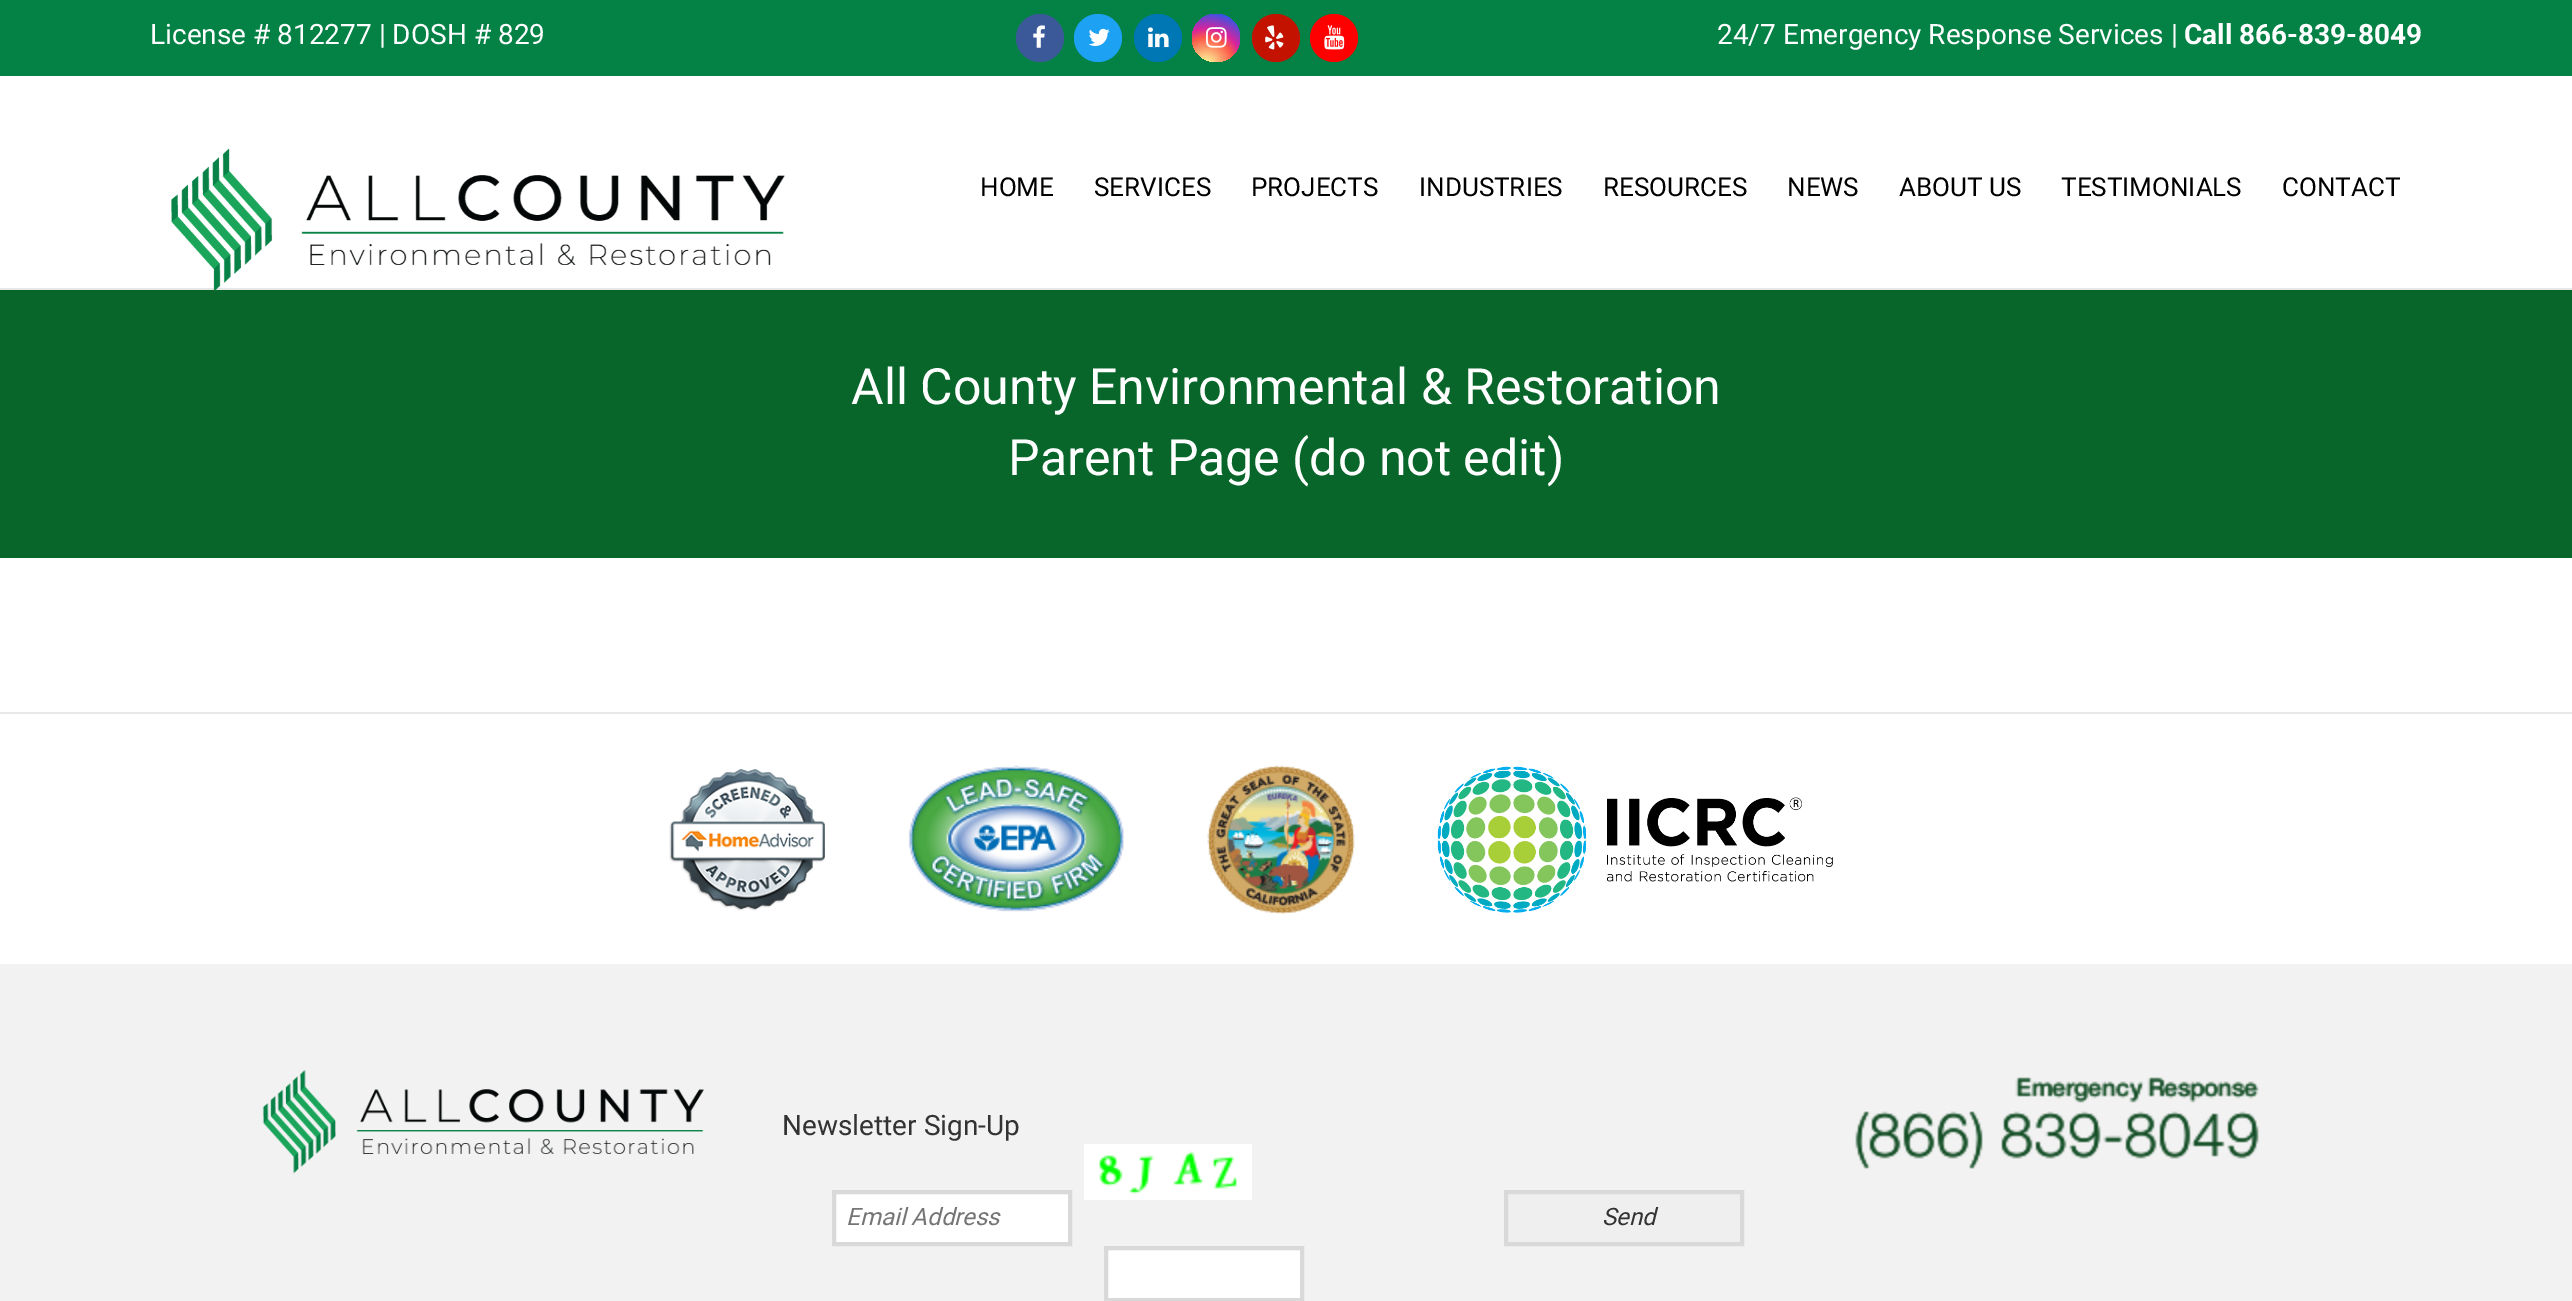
%!PS-Adobe-3.0
%%BoundingBox: 0 0 2572 1301
%%LanguageLevel: 3
%%Pages: 1
%%EndComments
%%BeginProlog
/setink { dup -16 bitshift 255 div exch dup -8 bitshift 255 and 255 div exch 255 and 255 div setrgbcolor } def
/usefont { [ exch dup neg 0 0 3 -1 roll 0 0 ] selectfont } def
/disc { newpath 0 360 arc closepath } def
/drawimage { 5 dict begin { /h /w /y /x /name } { exch def } forall
  gsave x y translate w h scale
  w h 8 [w 0 0 h 0 0] name (r) file false 3 colorimage grestore end } def
%%EndProlog
%%BeginSetup
<< /PageSize [2572 1301] >> setpagedevice
%%EndSetup
%%Page: 1 1
0 1301 translate 1 -1 scale
4 setmiterlimit
16#FFFFFF setink
0 0 2572 1301 rectfill
16#E7E7E7 setink
0 288 2572 2 rectfill
16#048246 setink
0 0 2572 76 rectfill
/Roboto-Regular 28 usefont
16#FFFFFF setink
150 44 moveto (License # 812277 | DOSH # 829) show
16#3B5998 setink
1040 38 24 disc fill
(img1.raw) 1033 25 12 23 drawimage
16#1DA1F2 setink
1098 38 24 disc fill
(img2.raw) 1088 28 22 18 drawimage
16#0077B5 setink
1158 38 24 disc fill
(img3.raw) 1148 27 21 21 drawimage
gsave 1216 38 24 disc clip newpath 1206 65 translate 61 61 scale
<< /ShadingType 3 /ColorSpace /DeviceRGB /Coords [0 0 0 0 0 1] /Extend [true true] /Function << /FunctionType 3 /Domain [0 1] /Functions [<< /FunctionType 2 /Domain [0 1] /C0 [0.992 0.957 0.592] /C1 [0.992 0.957 0.592] /N 1 >> << /FunctionType 2 /Domain [0 1] /C0 [0.992 0.957 0.592] /C1 [0.992 0.349 0.286] /N 1 >> << /FunctionType 2 /Domain [0 1] /C0 [0.992 0.349 0.286] /C1 [0.839 0.141 0.624] /N 1 >> << /FunctionType 2 /Domain [0 1] /C0 [0.839 0.141 0.624] /C1 [0.157 0.353 0.922] /N 1 >> << /FunctionType 2 /Domain [0 1] /C0 [0.157 0.353 0.922] /C1 [0.157 0.353 0.922] /N 1 >>] /Bounds [0.05 0.45 0.6 0.9] /Encode [0 1 0 1 0 1 0 1 0 1] >> >> shfill grestore
(img4.raw) 1206 27 21 21 drawimage
16#C41200 setink
1276 38 24 disc fill
(img5.raw) 1265 25 19 25 drawimage
16#FF0000 setink
1334 38 24 disc fill
(img6.raw) 1324 25 21 25 drawimage
16#FFFFFF setink
1717 44 moveto (24/7 Emergency Response Services |) show
/Roboto-Bold 28 usefont
2184 44 moveto (Call 866-839-8049) show
16#08662A setink
0 290 2572 268 rectfill
(img7.raw) 171 148 614 144 drawimage
/Roboto-Regular 26 usefont
16#000000 setink
[
    [(HOME) 980 196]
    [(SERVICES) 1094 196]
    [(PROJECTS) 1251 196]
    [(INDUSTRIES) 1419 196]
    [(RESOURCES) 1603 196]
    [(NEWS) 1787 196]
    [(ABOUT US) 1899 196]
    [(TESTIMONIALS) 2061 196]
    [(CONTACT) 2282 196]
] { aload pop moveto show } forall
/Roboto-Regular 50 usefont
16#FFFFFF setink
851 404 moveto (All County Environmental & Restoration) show
1008 475 moveto (Parent Page \(do not edit\)) show
16#E8E8E8 setink
0 712 2572 2 rectfill
(img8.raw) 669 769 156 142 drawimage
(img9.raw) 908 765 216 147 drawimage
(img10.raw) 1207 765 148 149 drawimage
(img11.raw) 1437 766 396 147 drawimage
16#F2F2F2 setink
0 964 2572 337 rectfill
(img12.raw) 262 1070 443 104 drawimage
/Roboto-Regular 28 usefont
16#333333 setink
782 1135 moveto (Newsletter Sign-Up) show
16#FFFFFF setink
834 1192 moveto 1070 1192 lineto 1070 1244 lineto 834 1244 lineto closepath gsave fill grestore
16#D9D9D9 setink
4 setlinewidth
stroke
/Roboto-Italic 24 usefont
16#757575 setink
846 1225 moveto (Email Address) show
(img13.raw) 1084 1144 168 56 drawimage
16#FFFFFF setink
1106 1248 moveto 1302 1248 lineto 1302 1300 lineto 1106 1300 lineto closepath gsave fill grestore
16#D9D9D9 setink
stroke
16#EFEFEF setink
1506 1192 moveto 1742 1192 lineto 1742 1244 lineto 1506 1244 lineto closepath gsave fill grestore
16#D9D9D9 setink
stroke
16#333333 setink
1602 1225 moveto (Send) show
(img14.raw) 1855 1077 404 92 drawimage
showpage
%%EOF
